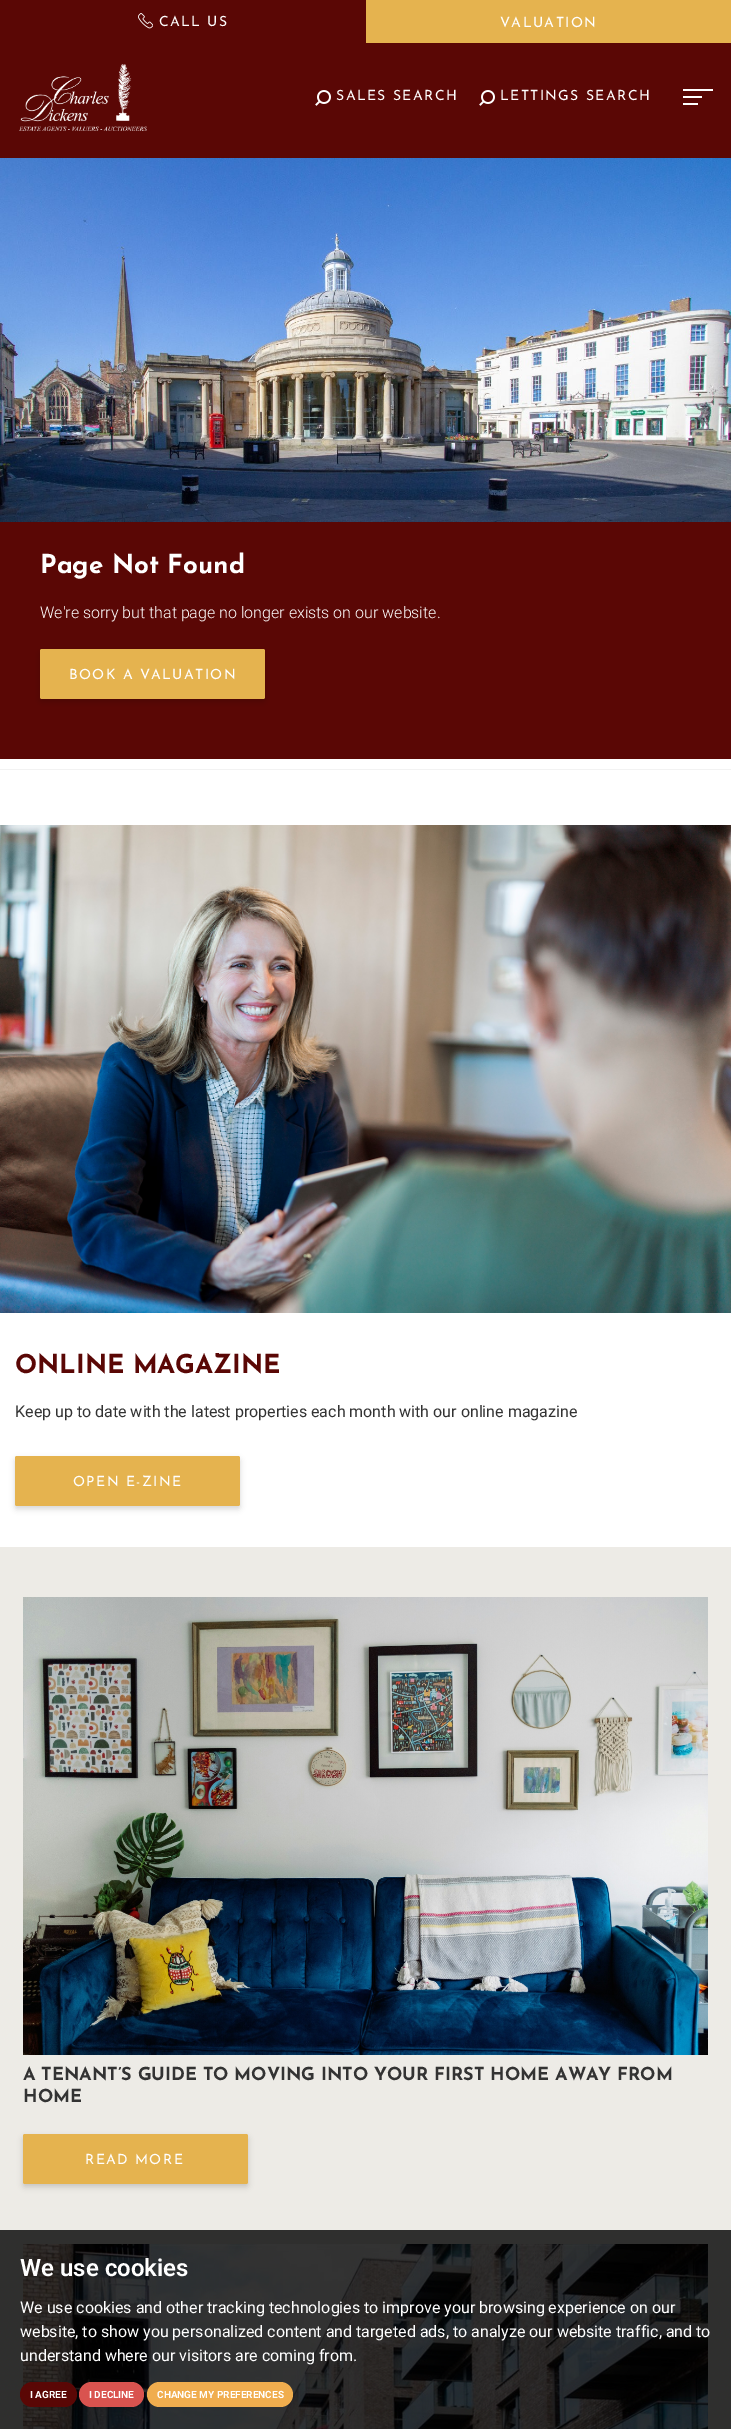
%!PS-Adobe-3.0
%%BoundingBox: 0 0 731 2429
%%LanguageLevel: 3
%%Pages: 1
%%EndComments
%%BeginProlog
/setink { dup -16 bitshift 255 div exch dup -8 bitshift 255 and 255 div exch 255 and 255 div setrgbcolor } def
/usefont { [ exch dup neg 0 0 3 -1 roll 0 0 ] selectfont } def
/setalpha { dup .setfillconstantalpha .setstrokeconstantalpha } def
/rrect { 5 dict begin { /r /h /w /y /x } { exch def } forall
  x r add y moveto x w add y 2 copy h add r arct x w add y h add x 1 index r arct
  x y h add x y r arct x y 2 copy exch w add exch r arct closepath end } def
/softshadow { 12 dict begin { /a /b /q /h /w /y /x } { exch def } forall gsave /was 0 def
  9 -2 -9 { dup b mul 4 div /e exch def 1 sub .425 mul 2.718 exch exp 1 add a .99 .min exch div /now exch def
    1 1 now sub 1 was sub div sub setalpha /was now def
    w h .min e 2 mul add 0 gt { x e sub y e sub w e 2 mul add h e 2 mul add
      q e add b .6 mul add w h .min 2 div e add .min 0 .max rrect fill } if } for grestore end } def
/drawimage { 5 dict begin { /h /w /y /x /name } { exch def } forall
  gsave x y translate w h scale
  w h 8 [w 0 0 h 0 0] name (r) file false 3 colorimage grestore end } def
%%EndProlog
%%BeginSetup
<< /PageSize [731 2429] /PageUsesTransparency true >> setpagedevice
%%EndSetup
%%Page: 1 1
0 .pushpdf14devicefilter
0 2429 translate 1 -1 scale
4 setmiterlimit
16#FFFFFF setink
0 0 731 2429 rectfill
16#5A0705 setink
0 0 731 759 rectfill
(img1.raw) 138 13 15 16 drawimage
/JosefinSans-Regular 14 usefont
16#FFFFFF setink
159 26 moveto 1.4 0 (CALL US) ashow
16#E5B34F setink
366 0 365 43 rectfill
16#FFFFFF setink
500 27 moveto 1.4 0 (VALUATION) ashow
(img2.raw) 19 64 128 67 drawimage
(img3.raw) 315 90 16 16 drawimage
336 100 moveto 1.4 0 (SALES SEARCH) ashow
(img3.raw) 479 90 16 16 drawimage
500 100 moveto 1.4 0 (LETTINGS SEARCH) ashow
[
    [683 89 30 2 16#FFFFFF]
    [683 96 19 2 16#FFFFFF]
    [683 103 15 2 16#FFFFFF]
] { aload pop setink rectfill } forall
(img4.raw) 0 158 731 364 drawimage
/JosefinSans-Bold 26 usefont
40 573 moveto (Page Not Found) show
/Roboto-Light 16 usefont
40 618 moveto (We're sorry but that page no longer exists on our website.) show
16#000000 setink
40 652 225 50 2 3 0.16 softshadow
16#E5B34F setink
40 649 225 50 2 rrect fill
/JosefinSans-Regular 14 usefont
16#FFFFFF setink
69 679 moveto 1.4 0 (BOOK A VALUATION) ashow
16#F2F2F2 setink
0 769 731 1 rectfill
(img5.raw) 0 825 731 488 drawimage
/JosefinSans-Bold 26 usefont
16#5A0705 setink
15 1373 moveto (ONLINE MAGAZINE) show
/Roboto-Regular 16 usefont
16#333333 setink
15 1417 moveto (Keep up to date with the latest properties each month with our online magazine) show
16#000000 setink
15 1459 225 50 2 3 0.16 softshadow
16#E5B34F setink
15 1456 225 50 2 rrect fill
/JosefinSans-Regular 14 usefont
16#FFFFFF setink
73 1486 moveto 1.4 0 (OPEN E-ZINE) ashow
16#EDEBE6 setink
0 1547 731 683 rectfill
16#2F2F2E setink
0 2230 731 199 rectfill
(img6.raw) 23 1597 685 458 drawimage
/JosefinSans-Bold 18 usefont
16#333333 setink
23 2080 moveto (A TENANT’S GUIDE TO MOVING INTO YOUR FIRST HOME AWAY FROM) show
23 2102 moveto (HOME) show
16#000000 setink
23 2137 225 50 2 3 0.16 softshadow
16#E5B34F setink
23 2134 225 50 2 rrect fill
/JosefinSans-Regular 14 usefont
16#FFFFFF setink
85 2164 moveto 1.4 0 (READ MORE) ashow
(img7.raw) 23 2244 685 185 drawimage
/Roboto-SemiBold 24 usefont
20 2276 moveto (We use cookies) show
/Roboto-Regular 16 usefont
[
    [(We use cookies and other tracking technologies to improve your browsing experience on our) 20 2313]
    [(website, to show you personalized content and targeted ads, to analyze our website traffic, and to) 20 2337]
    [(understand where our visitors are coming from.) 20 2361]
] { aload pop moveto show } forall
16#5A0705 setink
20 2382 57 25 12.5 rrect fill
/Roboto-Bold 10 usefont
16#FFFFFF setink
30 2398 moveto (I AGREE) show
16#D9534F setink
79 2382 65 25 12.5 rrect fill
16#FFFFFF setink
89 2398 moveto (I DECLINE) show
16#F0AD4E setink
147 2382 146 25 12.5 rrect fill
16#FFFFFF setink
157 2398 moveto (CHANGE MY PREFERENCES) show
.poppdf14devicefilter showpage
%%EOF
